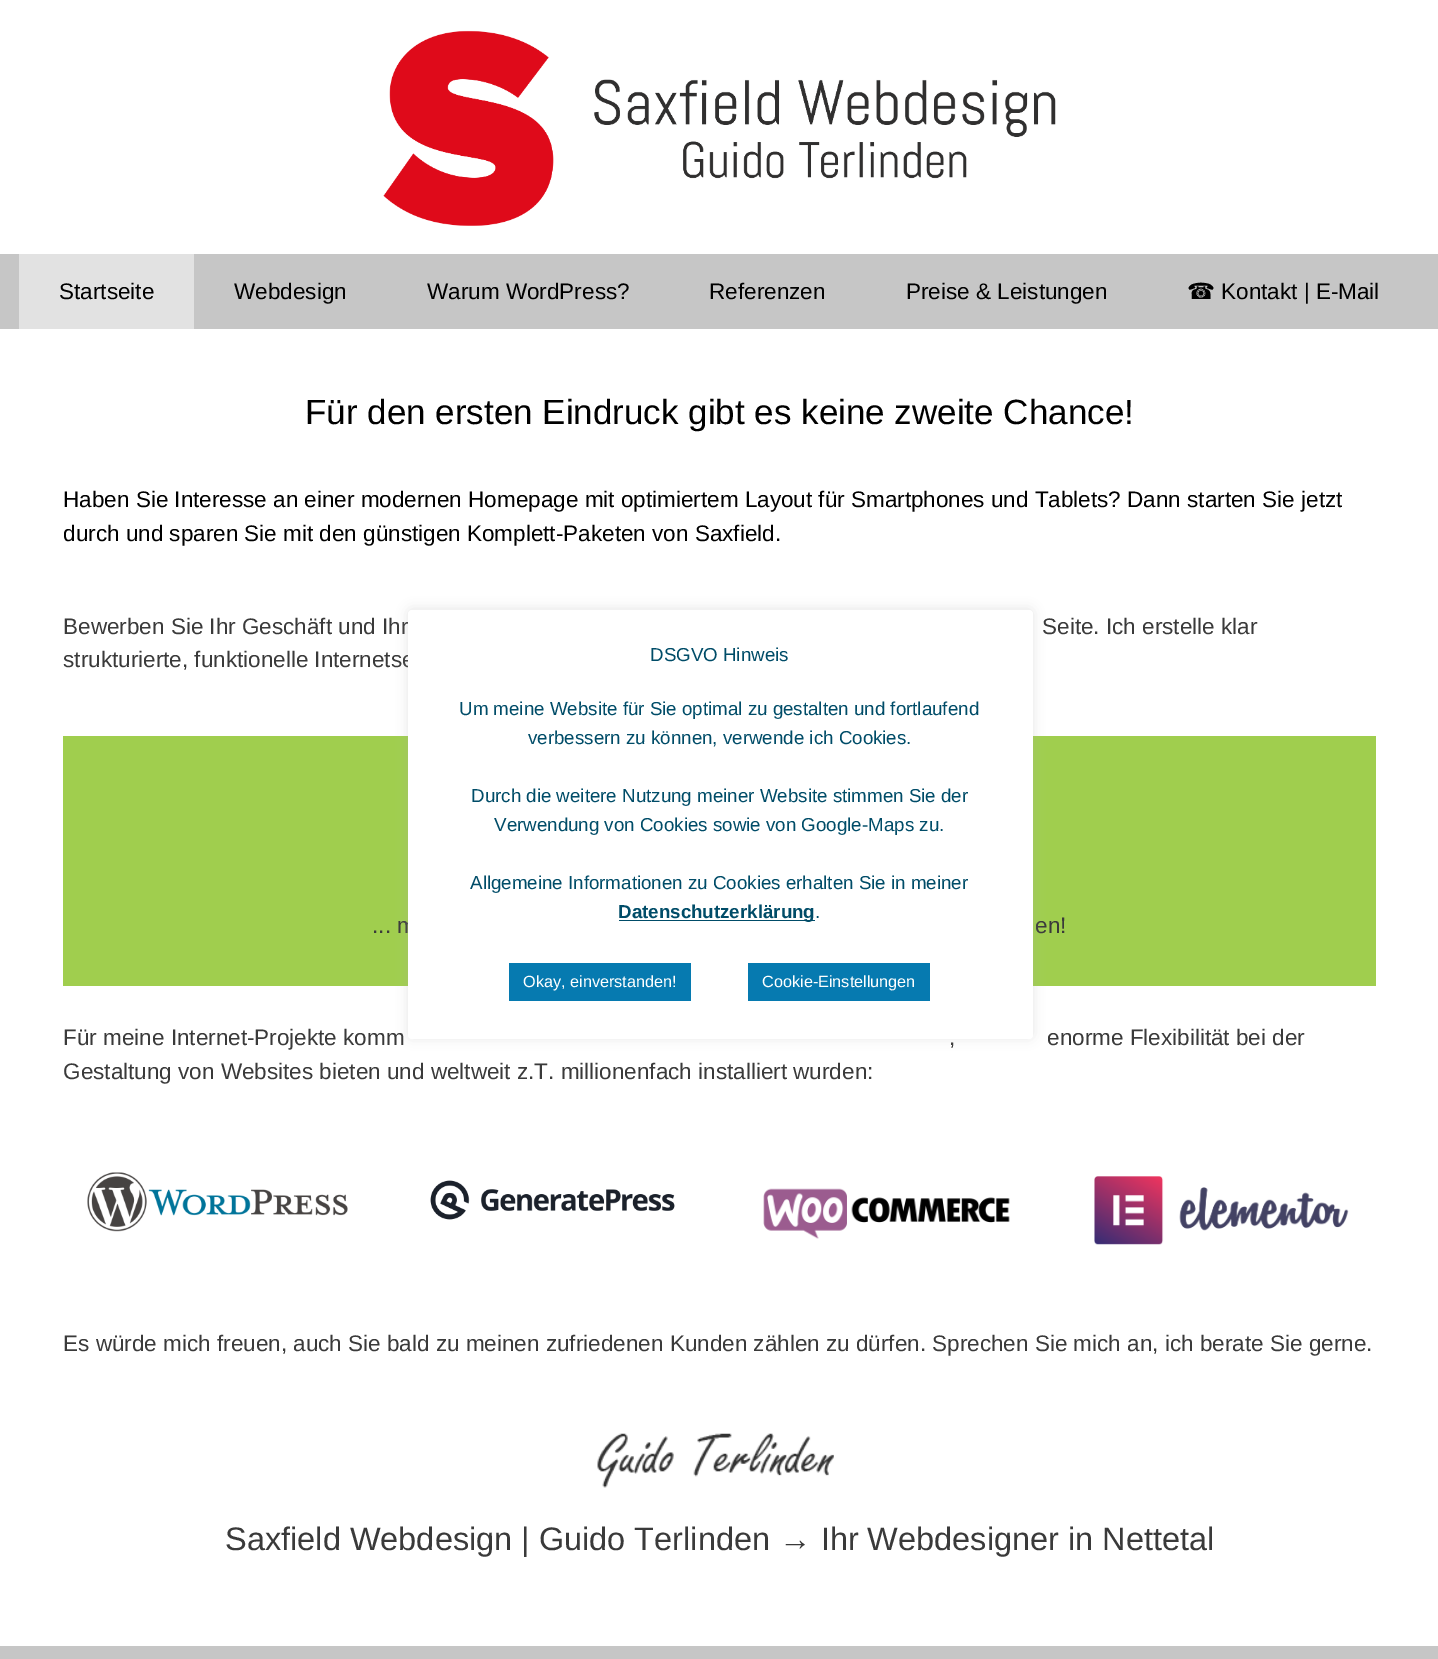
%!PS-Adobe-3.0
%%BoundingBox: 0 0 1438 1659
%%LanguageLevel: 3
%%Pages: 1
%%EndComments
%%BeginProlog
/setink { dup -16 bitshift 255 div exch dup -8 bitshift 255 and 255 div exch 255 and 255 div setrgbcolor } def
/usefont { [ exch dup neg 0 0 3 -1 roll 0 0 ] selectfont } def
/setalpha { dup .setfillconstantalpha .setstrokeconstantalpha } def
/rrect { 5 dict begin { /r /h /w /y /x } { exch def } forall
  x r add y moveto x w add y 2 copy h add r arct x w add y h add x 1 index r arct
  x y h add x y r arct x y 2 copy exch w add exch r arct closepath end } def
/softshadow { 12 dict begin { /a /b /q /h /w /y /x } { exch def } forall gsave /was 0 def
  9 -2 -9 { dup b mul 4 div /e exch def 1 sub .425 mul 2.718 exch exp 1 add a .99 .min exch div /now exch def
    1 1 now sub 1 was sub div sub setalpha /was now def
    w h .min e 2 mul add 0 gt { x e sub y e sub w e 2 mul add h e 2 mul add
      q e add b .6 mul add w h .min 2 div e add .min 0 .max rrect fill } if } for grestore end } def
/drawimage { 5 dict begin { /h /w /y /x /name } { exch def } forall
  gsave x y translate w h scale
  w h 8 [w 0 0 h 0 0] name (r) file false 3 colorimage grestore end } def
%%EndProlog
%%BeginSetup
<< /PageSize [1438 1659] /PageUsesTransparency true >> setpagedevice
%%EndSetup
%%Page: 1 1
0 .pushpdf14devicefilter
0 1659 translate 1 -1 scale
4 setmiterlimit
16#FFFFFF setink
0 0 1438 1659 rectfill
(img1.raw) 383 30 673 196 drawimage
16#C6C6C6 setink
0 254 1438 75 rectfill
16#E2E2E2 setink
19 254 175 75 rectfill
/LiberationSans-Regular 22.5 usefont
16#000000 setink
[
    [(Startseite) 59 299]
    [(Webdesign) 234 299]
    [(Warum WordPress?) 427 299]
    [(Referenzen) 709 299]
    [(Preise & Leistungen) 906 299]
] { aload pop moveto show } forall
/DejaVuSans-Regular 22.5 usefont
1187 299 moveto (☎) show
/LiberationSans-Regular 22.5 usefont
1221 299 moveto (Kontakt | E-Mail) show
/LiberationSans-Regular 35 usefont
305 424 moveto (Für den ersten Eindruck gibt es keine zweite Chance!) show
/LiberationSans-Regular 22.5 usefont
63 507 moveto (Haben Sie Interesse an einer modernen Homepage mit optimiertem Layout für Smartphones und Tablets? Dann starten Sie jetzt) show
63 541 moveto (durch und sparen Sie mit den günstigen Komplett-Paketen von Saxfield.) show
16#3A3A3A setink
[
    [(Bewerben Sie Ihr Geschäft und Ihr) 63 634]
    [(Seite. Ich erstelle klar) 1042 634]
    [(strukturierte, funktionelle Internetse) 63 667]
] { aload pop moveto show } forall
16#A0CE4E setink
63 736 1313 250 rectfill
16#3A3A3A setink
[
    [(... m) 372 933]
    [(en!) 1035 933]
    [(Für meine Internet-Projekte komm) 63 1045]
    [(,) 949 1045]
    [(enorme Flexibilität bei der) 1047 1045]
    [(Gestaltung von Websites bieten und weltweit z.T. millionenfach installiert wurden:) 63 1079]
] { aload pop moveto show } forall
(img2.raw) 87 1172 261 60 drawimage
(img3.raw) 430 1180 245 40 drawimage
(img4.raw) 763 1188 247 51 drawimage
(img5.raw) 1094 1176 255 69 drawimage
63 1351 moveto (Es würde mich freuen, auch Sie bald zu meinen zufriedenen Kunden zählen zu dürfen. Sprechen Sie mich an, ich berate Sie gerne.) show
(img6.raw) 597 1433 237 55 drawimage
/LiberationSans-Regular 32.5 usefont
225 1550 moveto (Saxfield Webdesign | Guido Terlinden → Ihr Webdesigner in Nettetal) show
16#ACABAB setink
408 609 625 429 4 6 0.3 softshadow
16#FFFFFF setink
408 610 625 429 4 rrect fill
/LiberationSans-Regular 18.75 usefont
16#004C68 setink
[
    [(DSGVO Hinweis) 650 661]
    [(Um meine Website für Sie optimal zu gestalten und fortlaufend) 459 715]
    [(verbessern zu können, verwende ich Cookies.) 528 744]
    [(Durch die weitere Nutzung meiner Website stimmen Sie der) 471 802]
    [(Verwendung von Cookies sowie von Google-Maps zu.) 494 831]
    [(Allgemeine Informationen zu Cookies erhalten Sie in meiner) 470 889]
] { aload pop moveto show } forall
619 920 196 1 rectfill
/LiberationSans-Bold 18.75 usefont
618 918 moveto (Datenschutzerklärung) show
/LiberationSans-Regular 18.75 usefont
815 918 moveto (.) show
16#067AB0 setink
509 963 182 38 rectfill
/LiberationSans-Regular 16.25 usefont
16#FFFFFF setink
523 987 moveto (Okay, einverstanden!) show
16#067AB0 setink
748 963 182 38 rectfill
16#FFFFFF setink
762 987 moveto (Cookie-Einstellungen) show
16#C6C6C6 setink
0 1646 1438 13 rectfill
.poppdf14devicefilter showpage
%%EOF
